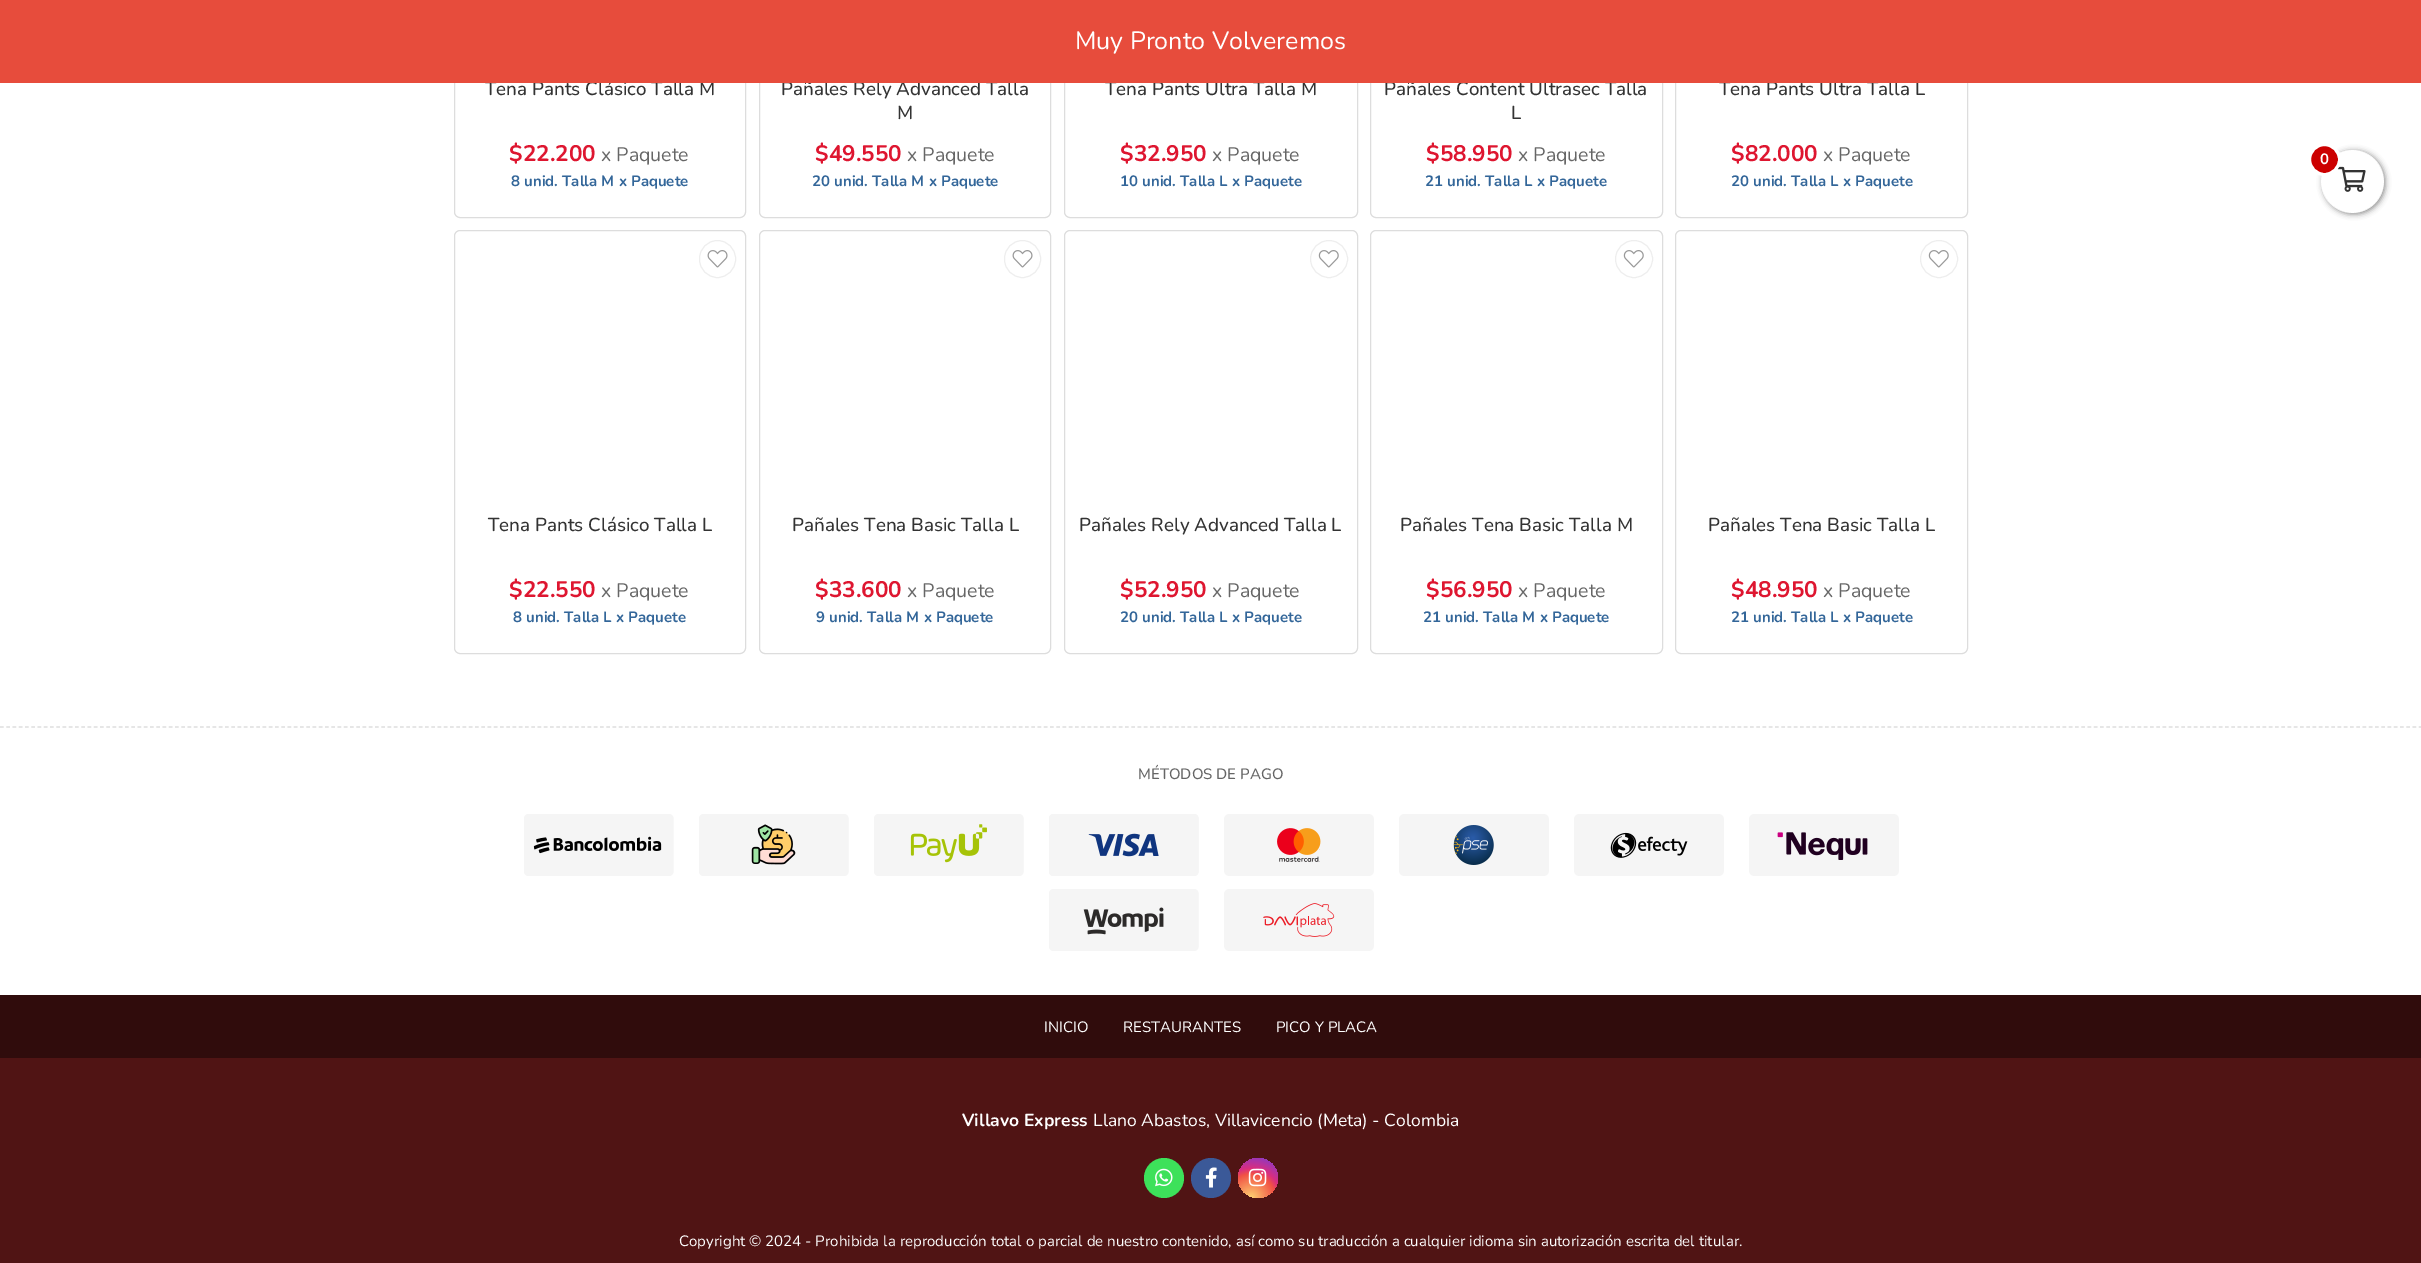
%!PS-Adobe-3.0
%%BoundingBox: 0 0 2421 1263
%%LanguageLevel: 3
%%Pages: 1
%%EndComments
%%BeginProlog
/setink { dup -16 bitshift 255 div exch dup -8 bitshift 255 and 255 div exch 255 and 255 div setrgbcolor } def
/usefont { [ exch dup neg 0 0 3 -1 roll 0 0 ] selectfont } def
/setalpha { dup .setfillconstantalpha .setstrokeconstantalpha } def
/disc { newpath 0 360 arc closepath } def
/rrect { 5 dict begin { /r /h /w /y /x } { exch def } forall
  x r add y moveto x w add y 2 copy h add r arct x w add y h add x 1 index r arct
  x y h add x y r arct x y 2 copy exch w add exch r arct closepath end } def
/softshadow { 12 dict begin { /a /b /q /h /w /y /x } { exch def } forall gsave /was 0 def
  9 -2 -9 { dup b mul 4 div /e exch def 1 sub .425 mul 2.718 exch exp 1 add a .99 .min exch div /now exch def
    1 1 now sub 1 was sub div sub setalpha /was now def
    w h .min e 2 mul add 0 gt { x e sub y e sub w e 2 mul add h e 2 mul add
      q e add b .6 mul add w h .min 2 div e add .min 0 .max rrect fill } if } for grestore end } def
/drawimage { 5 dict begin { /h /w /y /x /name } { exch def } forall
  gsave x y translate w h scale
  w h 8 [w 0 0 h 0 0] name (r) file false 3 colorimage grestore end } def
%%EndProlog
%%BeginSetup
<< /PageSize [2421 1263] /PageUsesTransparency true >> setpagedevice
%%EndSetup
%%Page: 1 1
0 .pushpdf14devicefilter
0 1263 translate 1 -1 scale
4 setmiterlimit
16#FFFFFF setink
0 0 2421 1263 rectfill
16#DDDDDD setink
454.5 -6.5 291 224 5.5 rrect stroke
/Nunito-Medium 18.75 usefont
16#333333 setink
485 95 moveto (Tena Pants Clásico Talla M) show
16#DDDDDD setink
759.5 -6.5 291 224 5.5 rrect stroke
16#333333 setink
781 95 moveto (Pañales Rely Advanced Talla) show
16#DDDDDD setink
1064.5 -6.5 293 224 5.5 rrect stroke
16#333333 setink
1105 95 moveto (Tena Pants Ultra Talla M) show
16#DDDDDD setink
1370.5 -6.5 292 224 5.5 rrect stroke
16#333333 setink
1384 95 moveto (Pañales Content Ultrasec Talla) show
16#DDDDDD setink
1675.5 -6.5 292 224 5.5 rrect stroke
16#333333 setink
1719 95 moveto (Tena Pants Ultra Talla L) show
16#E74C3C setink
0 0 2421 83 rectfill
/Nunito-Regular 25 usefont
16#FFFFFF setink
1075 49 moveto (Muy Pronto Volveremos) show
/Nunito-Bold 22.5 usefont
16#DE1630 setink
509 161 moveto ($22.200) show
/Nunito-Regular 19.5 usefont
16#666666 setink
601 161 moveto (x Paquete) show
/Nunito-Bold 15 usefont
16#336699 setink
511 186 moveto (8 unid. Talla M x Paquete) show
/Nunito-Medium 18.75 usefont
16#333333 setink
897 119 moveto (M) show
/Nunito-Bold 22.5 usefont
16#DE1630 setink
815 161 moveto ($49.550) show
/Nunito-Regular 19.5 usefont
16#666666 setink
907 161 moveto (x Paquete) show
/Nunito-Bold 15 usefont
16#336699 setink
812 186 moveto (20 unid. Talla M x Paquete) show
/Nunito-Bold 22.5 usefont
16#DE1630 setink
1120 161 moveto ($32.950) show
/Nunito-Regular 19.5 usefont
16#666666 setink
1212 161 moveto (x Paquete) show
/Nunito-Bold 15 usefont
16#336699 setink
1120 186 moveto (10 unid. Talla L x Paquete) show
/Nunito-Medium 18.75 usefont
16#333333 setink
1511 119 moveto (L) show
/Nunito-Bold 22.5 usefont
16#DE1630 setink
1426 161 moveto ($58.950) show
/Nunito-Regular 19.5 usefont
16#666666 setink
1518 161 moveto (x Paquete) show
/Nunito-Bold 15 usefont
16#336699 setink
1425 186 moveto (21 unid. Talla L x Paquete) show
/Nunito-Bold 22.5 usefont
16#DE1630 setink
1731 161 moveto ($82.000) show
/Nunito-Regular 19.5 usefont
16#666666 setink
1823 161 moveto (x Paquete) show
/Nunito-Bold 15 usefont
16#336699 setink
1731 186 moveto (20 unid. Talla L x Paquete) show
16#DDDDDD setink
454.5 230.5 291 423 5.5 rrect stroke
16#EEEEEE setink
699.5 240.5 36 37 18 rrect stroke
(img1.raw) 707 250 21 18 drawimage
/Nunito-Medium 18.75 usefont
16#333333 setink
488 531 moveto (Tena Pants Clásico Talla L) show
/Nunito-Bold 22.5 usefont
16#DE1630 setink
509 597 moveto ($22.550) show
/Nunito-Regular 19.5 usefont
16#666666 setink
601 597 moveto (x Paquete) show
/Nunito-Bold 15 usefont
16#336699 setink
513 622 moveto (8 unid. Talla L x Paquete) show
16#DDDDDD setink
759.5 230.5 291 423 5.5 rrect stroke
16#EEEEEE setink
1004.5 240.5 36 37 18 rrect stroke
(img1.raw) 1012 250 21 18 drawimage
/Nunito-Medium 18.75 usefont
16#333333 setink
792 531 moveto (Pañales Tena Basic Talla L) show
/Nunito-Bold 22.5 usefont
16#DE1630 setink
815 597 moveto ($33.600) show
/Nunito-Regular 19.5 usefont
16#666666 setink
907 597 moveto (x Paquete) show
/Nunito-Bold 15 usefont
16#336699 setink
816 622 moveto (9 unid. Talla M x Paquete) show
16#DDDDDD setink
1064.5 230.5 293 423 5.5 rrect stroke
16#EEEEEE setink
1329 259 18.5 disc stroke
(img2.raw) 1318 250 21 18 drawimage
/Nunito-Medium 18.75 usefont
16#333333 setink
1079 531 moveto (Pañales Rely Advanced Talla L) show
/Nunito-Bold 22.5 usefont
16#DE1630 setink
1120 597 moveto ($52.950) show
/Nunito-Regular 19.5 usefont
16#666666 setink
1212 597 moveto (x Paquete) show
/Nunito-Bold 15 usefont
16#336699 setink
1120 622 moveto (20 unid. Talla L x Paquete) show
16#DDDDDD setink
1370.5 230.5 292 423 5.5 rrect stroke
16#EEEEEE setink
1634 259 18.5 disc stroke
(img2.raw) 1623 250 21 18 drawimage
/Nunito-Medium 18.75 usefont
16#333333 setink
1400 531 moveto (Pañales Tena Basic Talla M) show
/Nunito-Bold 22.5 usefont
16#DE1630 setink
1426 597 moveto ($56.950) show
/Nunito-Regular 19.5 usefont
16#666666 setink
1518 597 moveto (x Paquete) show
/Nunito-Bold 15 usefont
16#336699 setink
1423 622 moveto (21 unid. Talla M x Paquete) show
16#DDDDDD setink
1675.5 230.5 292 423 5.5 rrect stroke
16#EEEEEE setink
1939 259 18.5 disc stroke
(img2.raw) 1928 250 21 18 drawimage
/Nunito-Medium 18.75 usefont
16#333333 setink
1708 531 moveto (Pañales Tena Basic Talla L) show
/Nunito-Bold 22.5 usefont
16#DE1630 setink
1731 597 moveto ($48.950) show
/Nunito-Regular 19.5 usefont
16#666666 setink
1823 597 moveto (x Paquete) show
/Nunito-Bold 15 usefont
16#336699 setink
1731 622 moveto (21 unid. Talla L x Paquete) show
gsave
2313 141 moveto 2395 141 lineto 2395 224 lineto 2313 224 lineto closepath 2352.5 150 moveto 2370 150 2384 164 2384 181.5 curveto 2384 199 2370 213 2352.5 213 curveto 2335 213 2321 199 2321 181.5 curveto 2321 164 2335 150 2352.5 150 curveto closepath eoclip newpath
16#808080 setink
2323 151 62 63 31 3 1 softshadow
grestore
0.9 setalpha
16#FFFFFF setink
2352.5 181.5 31.5 disc fill
1 setalpha
(img3.raw) 2337 166 29 26 drawimage
16#CC0000 setink
2324.5 159.5 15 disc gsave fill grestore
16#FFFFFF setink
3 setlinewidth
stroke
2320 164 moveto (0) show
16#DDDDDD setink
1.2 setlinewidth
[3.75 2.5] 0 setdash
0 727 moveto 2421 727 lineto stroke
/Nunito-Medium 15 usefont
16#666666 setink
1138 779 moveto (MÉTODOS DE PAGO) show
(img4.raw) 524 814 150 62 drawimage
(img5.raw) 699 814 150 62 drawimage
(img6.raw) 874 814 150 62 drawimage
(img7.raw) 1049 814 150 62 drawimage
(img8.raw) 1224 814 150 62 drawimage
(img9.raw) 1399 814 150 62 drawimage
(img10.raw) 1574 814 150 62 drawimage
(img11.raw) 1749 814 150 62 drawimage
(img12.raw) 1049 889 150 62 drawimage
(img13.raw) 1224 889 150 62 drawimage
16#501414 setink
0 1058 2421 205 rectfill
16#300C0C setink
0 995 2421 63 rectfill
/Nunito-Regular 15 usefont
16#FFFFFF setink
[
    [(INICIO) 1044 1032]
    [(RESTAURANTES) 1123 1032]
    [(PICO Y PLACA) 1276 1032]
] { aload pop moveto show } forall
/Nunito-Bold 17.5 usefont
962 1126 moveto (Villavo Express) show
/Nunito-Regular 17.5 usefont
1093 1126 moveto (Llano Abastos, Villavicencio \(Meta\) - Colombia) show
16#3DE15A setink
1164 1178 20 disc fill
(img14.raw) 1155 1168 18 19 drawimage
16#3B5998 setink
1211 1178 20 disc fill
(img15.raw) 1205 1167 12 21 drawimage
gsave 1258 1178 20 disc clip newpath 1251 1198 translate 48 48 scale
<< /ShadingType 3 /ColorSpace /DeviceRGB /Coords [0 0 0 0 0 1] /Extend [true true] /Function << /FunctionType 3 /Domain [0 1] /Functions [<< /FunctionType 2 /Domain [0 1] /C0 [0.996 0.827 0.451] /C1 [0.945 0.322 0.271] /N 1 >> << /FunctionType 2 /Domain [0 1] /C0 [0.945 0.322 0.271] /C1 [0.851 0.18 0.498] /N 1 >> << /FunctionType 2 /Domain [0 1] /C0 [0.851 0.18 0.498] /C1 [0.608 0.212 0.718] /N 1 >> << /FunctionType 2 /Domain [0 1] /C0 [0.608 0.212 0.718] /C1 [0.318 0.369 0.812] /N 1 >>] /Bounds [0.5 0.62 0.85] /Encode [0 1 0 1 0 1 0 1] >> >> shfill grestore
(img16.raw) 1248 1168 19 19 drawimage
/Nunito-Regular 15 usefont
16#FFFFFF setink
679 1246 moveto (Copyright © 2024 - Prohibida la reproducción total o parcial de nuestro contenido, así como su traducción a cualquier idioma sin autorización escrita del titular.) show
.poppdf14devicefilter showpage
%%EOF
